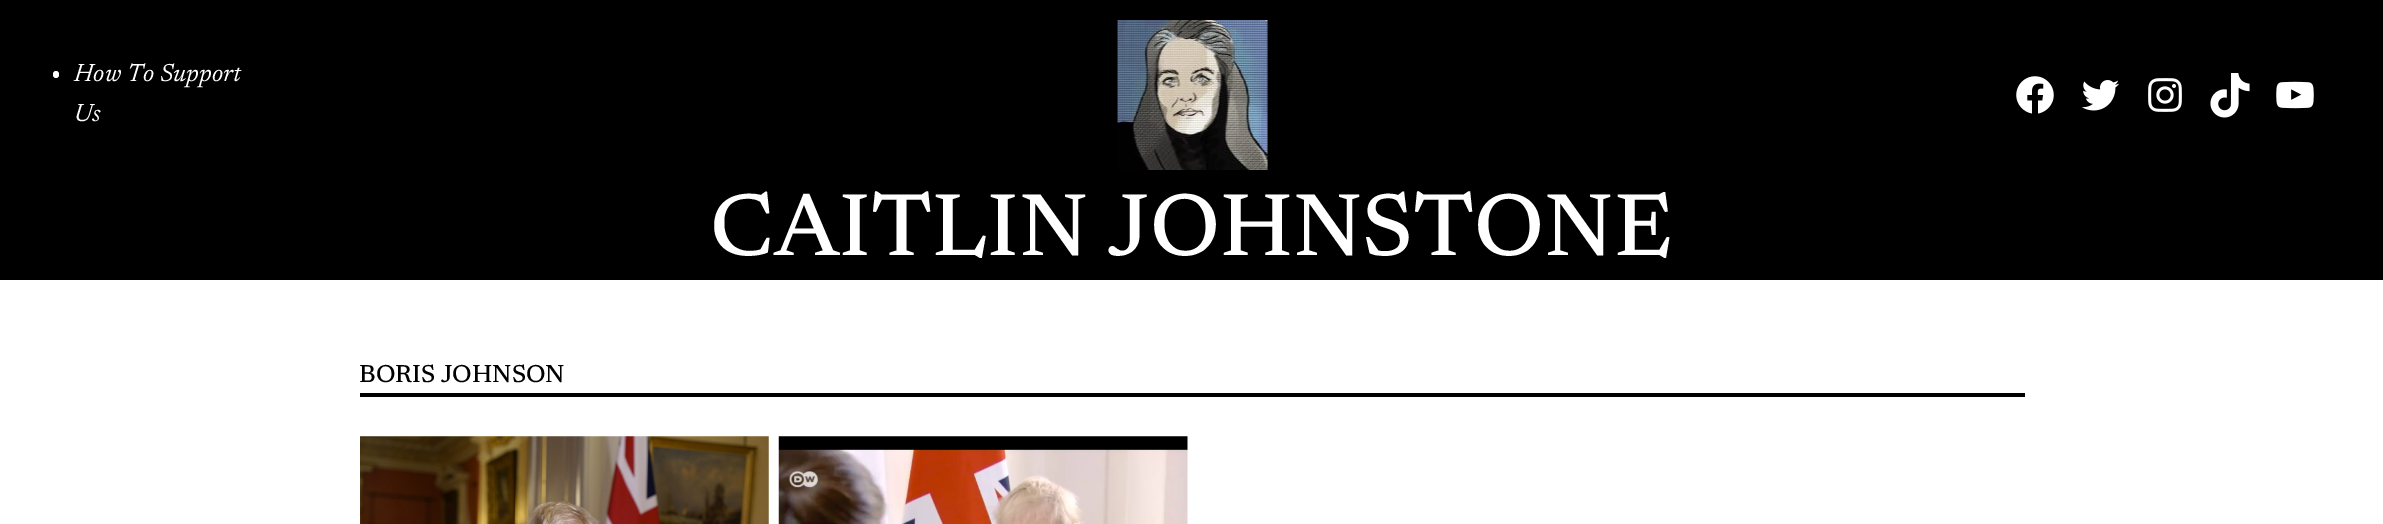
%!PS-Adobe-3.0
%%BoundingBox: 0 0 2383 524
%%LanguageLevel: 3
%%Pages: 1
%%EndComments
%%BeginProlog
/setink { dup -16 bitshift 255 div exch dup -8 bitshift 255 and 255 div exch 255 and 255 div setrgbcolor } def
/usefont { [ exch dup neg 0 0 3 -1 roll 0 0 ] selectfont } def
/rrect { 5 dict begin { /r /h /w /y /x } { exch def } forall
  x r add y moveto x w add y 2 copy h add r arct x w add y h add x 1 index r arct
  x y h add x y r arct x y 2 copy exch w add exch r arct closepath end } def
/drawimage { 5 dict begin { /h /w /y /x /name } { exch def } forall
  gsave x y translate w h scale
  w h 8 [w 0 0 h 0 0] name (r) file false 3 colorimage grestore end } def
%%EndProlog
%%BeginSetup
<< /PageSize [2383 524] >> setpagedevice
%%EndSetup
%%Page: 1 1
0 524 translate 1 -1 scale
4 setmiterlimit
16#FFFFFF setink
0 0 2383 524 rectfill
16#000000 setink
0 0 2383 280 rectfill
16#FFFFFF setink
53 71 6 7 3 rrect fill
/Newsreader-Italic 25 usefont
74 81 moveto (How To Support) show
74 121 moveto (Us) show
(img1.raw) 1117 20 151 150 drawimage
(img2.raw) 2016 76 38 38 drawimage
(img3.raw) 2081 80 38 31 drawimage
(img4.raw) 2148 78 34 34 drawimage
(img5.raw) 2210 73 40 45 drawimage
(img6.raw) 2276 81 38 28 drawimage
/Newsreader-Medium 89.5 usefont
710 255 moveto (CAITLIN JOHNSTONE) show
16#000000 setink
360 393 1665 4 rectfill
/Newsreader-Medium 25 usefont
359 382 moveto (BORIS JOHNSON) show
(img7.raw) 360 436 409 88 drawimage
(img8.raw) 778 436 410 88 drawimage
showpage
%%EOF
